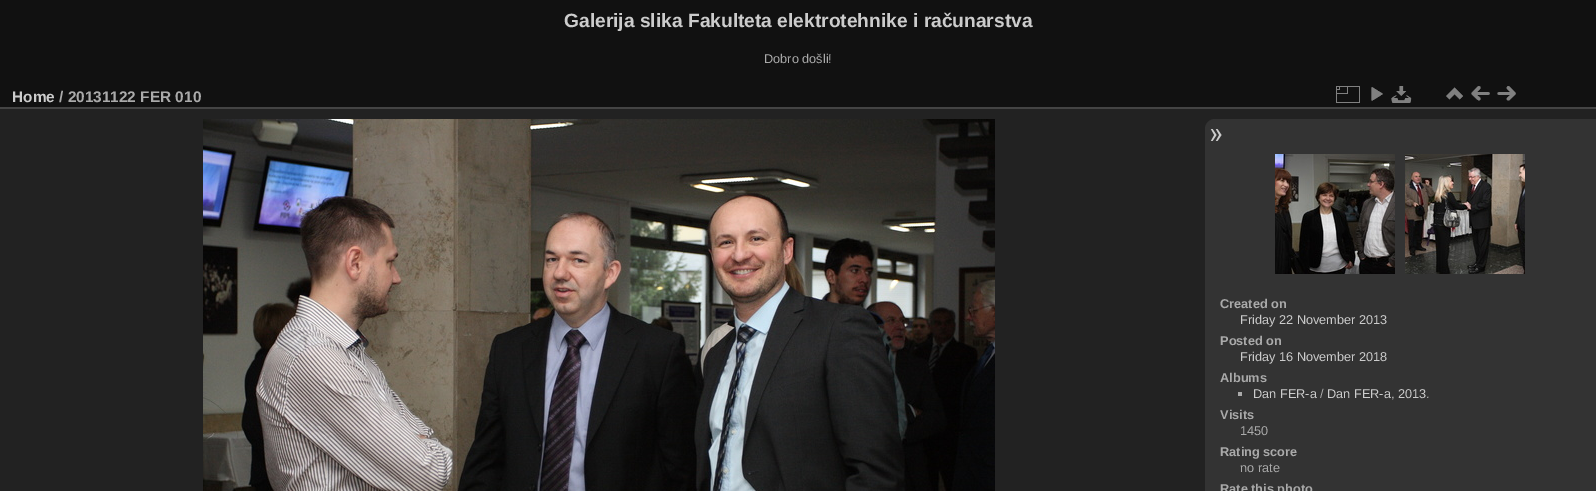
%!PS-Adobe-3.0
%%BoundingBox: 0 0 1596 491
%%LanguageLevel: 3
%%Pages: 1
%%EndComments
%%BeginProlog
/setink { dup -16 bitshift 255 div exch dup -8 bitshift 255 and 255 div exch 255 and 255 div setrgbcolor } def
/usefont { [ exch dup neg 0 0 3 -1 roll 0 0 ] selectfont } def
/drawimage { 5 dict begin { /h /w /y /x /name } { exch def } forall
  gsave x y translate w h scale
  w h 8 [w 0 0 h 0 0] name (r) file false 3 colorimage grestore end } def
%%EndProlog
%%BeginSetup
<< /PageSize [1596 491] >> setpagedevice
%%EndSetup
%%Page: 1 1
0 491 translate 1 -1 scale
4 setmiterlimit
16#111111 setink
0 0 1596 491 rectfill
/LiberationSans-Bold 19.2 usefont
16#CCCCCC setink
564 27 moveto (Galerija slika Fakulteta elektrotehnike i računarstva) show
/LiberationSans-Regular 12.75 usefont
16#AAAAAA setink
764 63 moveto (Dobro došli!) show
16#222222 setink
0 109 1596 382 rectfill
16#444444 setink
0 107 1596 2 rectfill
/LiberationSans-Bold 15.4 usefont
16#CCCCCC setink
12 102 moveto (Home) show
16#AAAAAA setink
59 102 moveto (/ 20131122 FER 010) show
(img1.raw) 1336 86 24 17 drawimage
(img2.raw) 1371 87 12 14 drawimage
(img3.raw) 1391 86 21 17 drawimage
(img4.raw) 1446 87 17 13 drawimage
(img5.raw) 1471 86 19 15 drawimage
(img6.raw) 1497 86 19 15 drawimage
(img7.raw) 203 119 792 372 drawimage
16#333333 setink
1215 119 moveto 1596 119 lineto 1596 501 lineto 1215 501 lineto 1209.5 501 1205 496.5 1205 491 curveto 1205 129 lineto 1205 123.5 1209.5 119 1215 119 curveto closepath fill
(img8.raw) 1210 129 12 12 drawimage
(img9.raw) 1275 154 120 120 drawimage
(img10.raw) 1405 154 120 120 drawimage
/LiberationSans-Bold 12.75 usefont
16#AAAAAA setink
1220 308 moveto (Created on) show
/LiberationSans-Regular 12.75 usefont
16#CCCCCC setink
1240 324 moveto (Friday 22 November 2013) show
/LiberationSans-Bold 12.75 usefont
16#AAAAAA setink
1220 345 moveto (Posted on) show
/LiberationSans-Regular 12.75 usefont
16#CCCCCC setink
1240 361 moveto (Friday 16 November 2018) show
/LiberationSans-Bold 12.75 usefont
16#AAAAAA setink
1220 382 moveto (Albums) show
1238 392 4 4 rectfill
/LiberationSans-Regular 12.75 usefont
16#CCCCCC setink
1253 398 moveto (Dan FER-a) show
16#AAAAAA setink
1320 398 moveto (/) show
16#CCCCCC setink
1327 398 moveto (Dan FER-a, 2013.) show
/LiberationSans-Bold 12.75 usefont
16#AAAAAA setink
1220 419 moveto (Visits) show
/LiberationSans-Regular 12.75 usefont
1240 435 moveto (1450) show
/LiberationSans-Bold 12.75 usefont
1220 456 moveto (Rating score) show
/LiberationSans-Regular 12.75 usefont
1240 472 moveto (no rate) show
/LiberationSans-Bold 12.75 usefont
1220 493 moveto (Rate this photo) show
showpage
%%EOF
